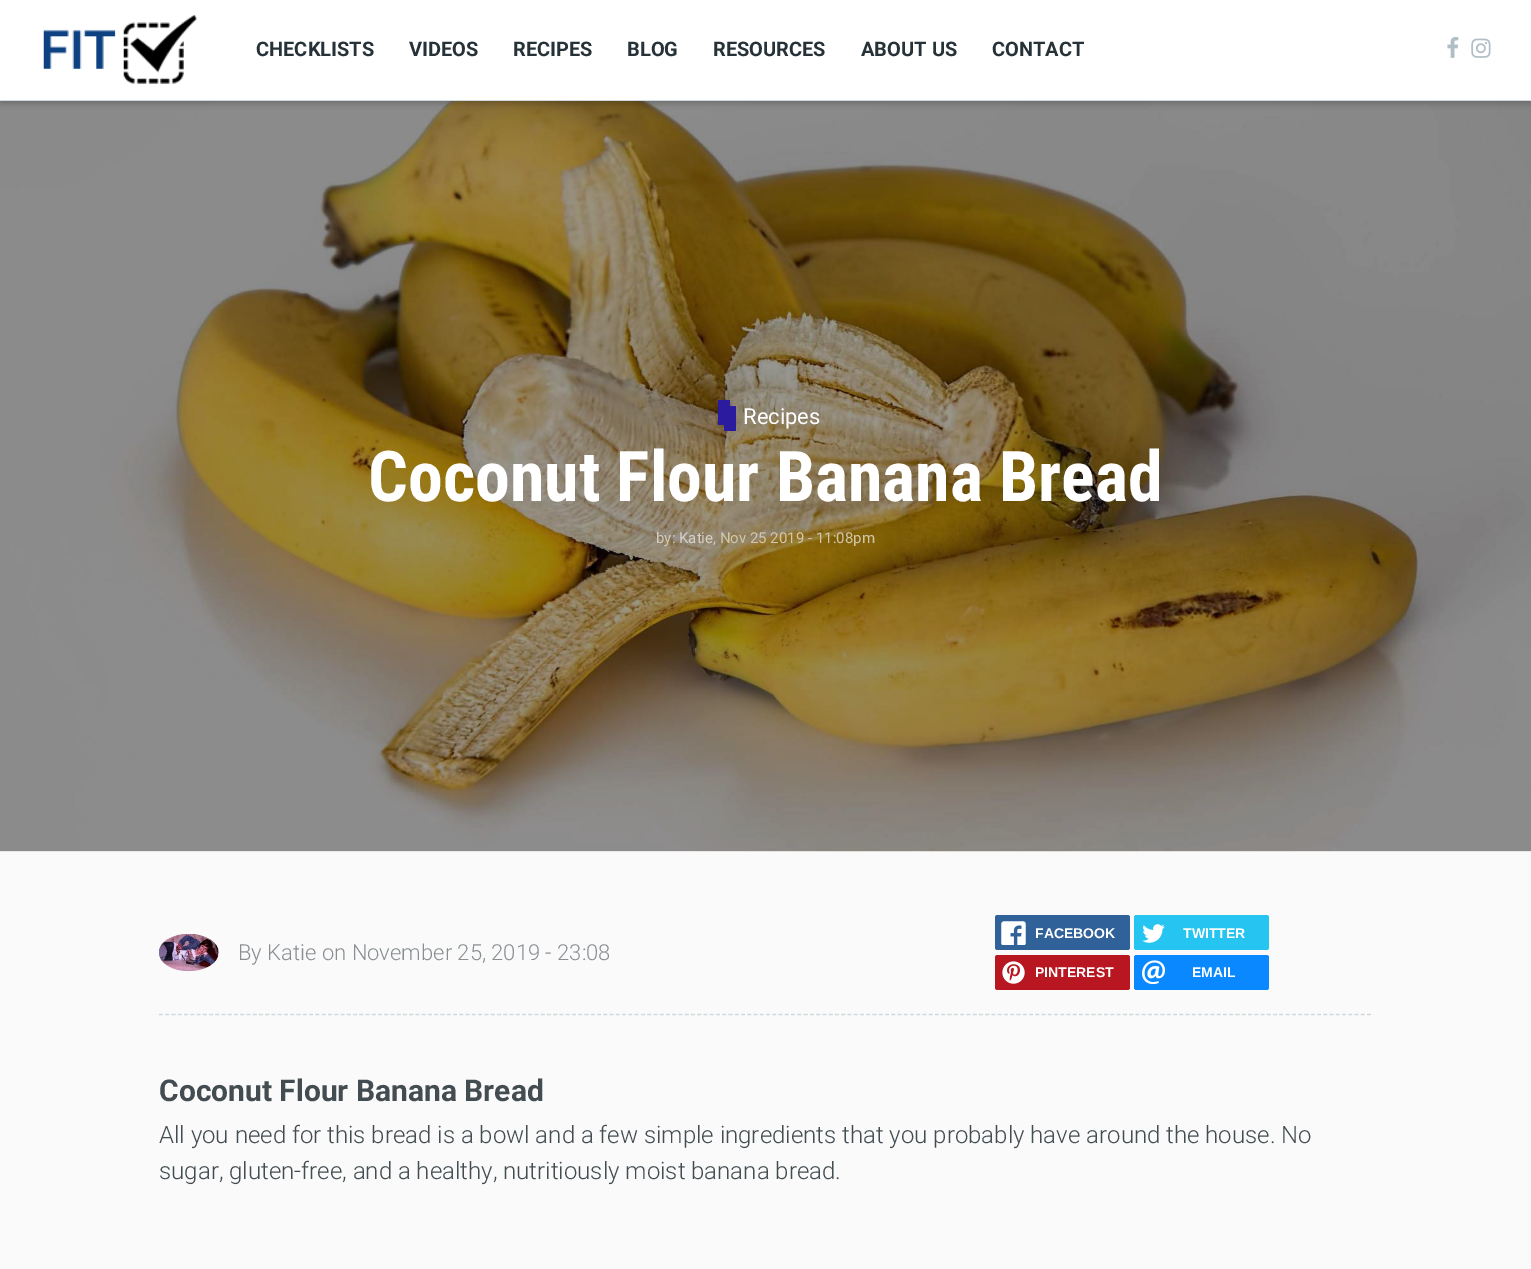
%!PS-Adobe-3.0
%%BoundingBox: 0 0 1531 1269
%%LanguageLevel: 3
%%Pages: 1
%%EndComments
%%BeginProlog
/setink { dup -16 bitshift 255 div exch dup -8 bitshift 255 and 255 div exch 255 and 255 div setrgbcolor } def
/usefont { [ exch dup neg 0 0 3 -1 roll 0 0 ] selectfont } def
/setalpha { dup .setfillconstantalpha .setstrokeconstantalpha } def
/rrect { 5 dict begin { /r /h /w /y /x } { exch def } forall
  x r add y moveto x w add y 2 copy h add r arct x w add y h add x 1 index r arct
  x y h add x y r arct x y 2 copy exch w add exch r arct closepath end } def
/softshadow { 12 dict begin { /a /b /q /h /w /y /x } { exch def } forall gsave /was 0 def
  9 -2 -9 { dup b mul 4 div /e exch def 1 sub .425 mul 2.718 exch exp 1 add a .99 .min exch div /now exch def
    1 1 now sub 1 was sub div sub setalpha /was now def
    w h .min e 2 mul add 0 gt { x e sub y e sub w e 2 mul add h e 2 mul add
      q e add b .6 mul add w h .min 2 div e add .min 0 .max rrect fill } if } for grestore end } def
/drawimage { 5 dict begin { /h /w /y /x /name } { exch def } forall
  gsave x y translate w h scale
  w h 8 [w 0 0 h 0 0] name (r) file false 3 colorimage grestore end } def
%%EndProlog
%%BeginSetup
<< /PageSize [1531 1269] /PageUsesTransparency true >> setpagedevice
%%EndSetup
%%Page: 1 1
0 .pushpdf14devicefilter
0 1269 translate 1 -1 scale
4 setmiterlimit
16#FAFAFA setink
0 0 1531 1269 rectfill
(img4.raw) 0 101 1531 751 drawimage
16#000000 setink
0 3 1531 101 0 3 0.2 softshadow
16#FFFFFF setink
0 0 1531 100 rectfill
16#CFD8DC setink
0 100 1531 1 rectfill
(img1.raw) 43 14 154 70 drawimage
/Roboto-Bold 20 usefont
16#263238 setink
[
    [(CHECKLISTS) 256 56]
    [(VIDEOS) 409 56]
    [(RECIPES) 513 56]
    [(BLOG) 627 56]
    [(RESOURCES) 713 56]
    [(ABOUT US) 861 56]
    [(CONTACT) 992 56]
] { aload pop moveto show } forall
(img2.raw) 1447 37 12 21 drawimage
(img3.raw) 1471 38 20 20 drawimage
16#2B1B9E setink
724 406 12 25 rectfill
718 400 12 25 rectfill
/Roboto-Regular 22 usefont
16#FFFFFF setink
743 424 moveto (Recipes) show
/RobotoCondensed-Bold 70 usefont
368 501 moveto (Coconut Flour Banana Bread) show
/Roboto-Regular 15 usefont
16#D1CBC1 setink
656 543 moveto (by:) show
16#D4CFC7 setink
679 543 moveto (Katie) show
16#D1C7AD setink
713 543 moveto (, Nov 25 2019 - 11:08pm) show
16#CFD8DC setink
1.2 setlinewidth
[3.75 2.51] 0 setdash
159 1014.5 moveto 1371 1014.5 lineto stroke
(img5.raw) 159 934 60 37 drawimage
/Roboto-Light 22 usefont
16#888E91 setink
238 960 moveto (By Katie on November 25, 2019 - 23:08) show
16#306199 setink
995 915 135 35 2.5 rrect fill
(img6.raw) 1001 921 25 24 drawimage
/LiberationSans-Bold 14 usefont
16#FFFFFF setink
1035 938 moveto (FACEBOOK) show
16#26C4F1 setink
1134 915 135 35 2.5 rrect fill
(img7.raw) 1142 924 23 19 drawimage
16#FFFFFF setink
1183 938 moveto (TWITTER) show
16#B81621 setink
995 955 135 35 2.5 rrect fill
(img8.raw) 1002 961 23 23 drawimage
16#FFFFFF setink
1035 977 moveto (PINTEREST) show
16#0A88FF setink
1134 955 135 35 2.5 rrect fill
(img9.raw) 1142 960 23 24 drawimage
16#FFFFFF setink
1192 977 moveto (EMAIL) show
/Roboto-Bold 30 usefont
16#424C51 setink
159 1101 moveto (Coconut Flour Banana Bread) show
/Roboto-Light 24 usefont
159 1143 moveto (All you need for this bread is a bowl and a few simple ingredients that you probably have around the house. No) show
159 1179 moveto (sugar, gluten-free, and a healthy, nutritiously moist banana bread.) show
.poppdf14devicefilter showpage
%%EOF
